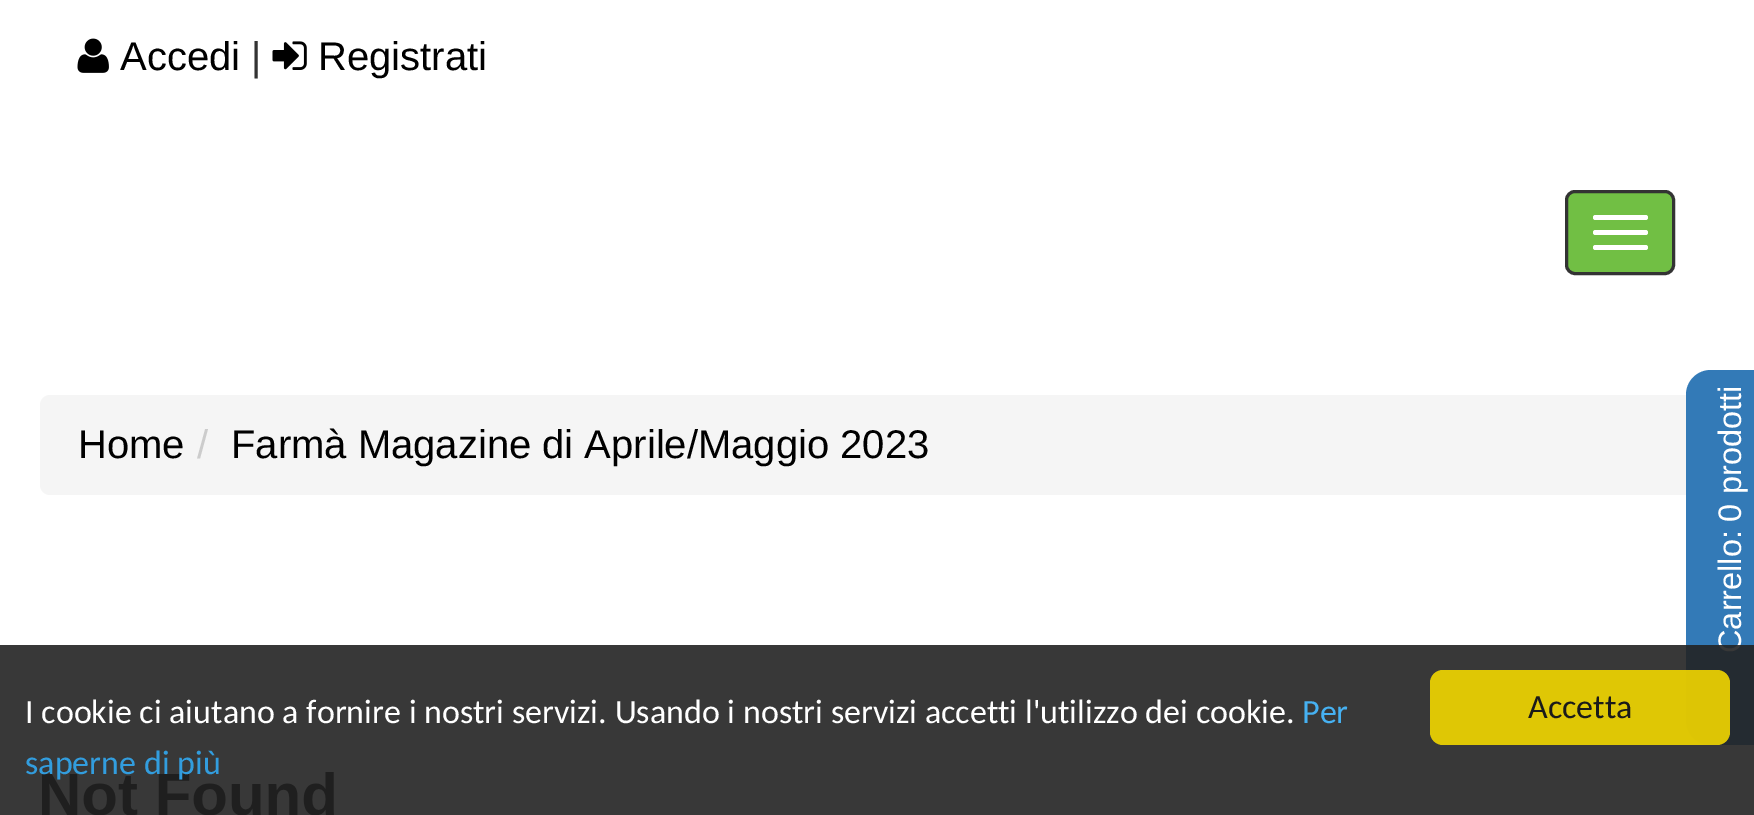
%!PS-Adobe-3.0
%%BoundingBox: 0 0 1754 815
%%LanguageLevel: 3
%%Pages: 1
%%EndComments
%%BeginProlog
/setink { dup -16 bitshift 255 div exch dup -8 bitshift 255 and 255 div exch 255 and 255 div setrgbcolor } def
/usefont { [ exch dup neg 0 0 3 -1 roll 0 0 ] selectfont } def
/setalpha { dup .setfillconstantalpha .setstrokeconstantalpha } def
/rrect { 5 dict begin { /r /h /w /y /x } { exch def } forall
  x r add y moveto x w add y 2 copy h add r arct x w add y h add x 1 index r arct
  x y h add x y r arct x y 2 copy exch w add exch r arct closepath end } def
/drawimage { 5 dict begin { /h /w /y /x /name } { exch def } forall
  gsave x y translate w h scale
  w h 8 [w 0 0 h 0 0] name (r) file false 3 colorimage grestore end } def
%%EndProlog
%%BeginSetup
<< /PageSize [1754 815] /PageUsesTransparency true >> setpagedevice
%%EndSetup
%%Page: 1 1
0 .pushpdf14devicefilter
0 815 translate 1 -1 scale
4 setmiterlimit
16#FFFFFF setink
0 0 1754 815 rectfill
(img1.raw) 77 38 32 35 drawimage
/LiberationSans-Regular 40 usefont
16#000000 setink
120 70 moveto (Accedi) show
16#333333 setink
251 70 moveto (|) show
(img2.raw) 272 41 35 29 drawimage
16#000000 setink
318 70 moveto (Registrati) show
16#71BF44 setink
1566.5 191.5 107 82 8.5 rrect gsave fill grestore
16#333333 setink
3 setlinewidth
stroke
16#FFFFFF setink
1593 215 55 5 2.5 rrect fill
1593 230 55 5 2.5 rrect fill
1593 245 55 5 2.5 rrect fill
16#F5F5F5 setink
40 395 1675 100 10 rrect fill
16#000000 setink
78 458 moveto (Home) show
16#CCCCCC setink
197 458 moveto (/) show
16#000000 setink
231 458 moveto (Farmà Magazine di Aprile/Maggio 2023) show
16#337AB7 setink
1686 720 moveto 1686 395 lineto 1686 381 1697 370 1711 370 curveto 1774 370 lineto 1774 745 lineto 1711 745 lineto 1697 745 1686 734 1686 720 curveto closepath fill
/LiberationSans-Regular 32.5 usefont
16#FFFFFF setink
gsave 1741 494 translate -90 rotate 0 0 moveto (prodotti) show grestore
gsave 1741 522 translate -90 rotate 0 0 moveto (0) show grestore
gsave 1741 653 translate -90 rotate 0 0 moveto (Carrello:) show grestore
(img3.raw) 42 772 292 43 drawimage
0.9 setalpha
16#222222 setink
0 645 1754 170 rectfill
/Carlito-Regular 34 usefont
1 setalpha
16#FFFFFF setink
25 723 moveto (I cookie ci aiutano a fornire i nostri servizi. Usando i nostri servizi accetti l'utilizzo dei cookie.) show
16#46B1F2 setink
1302 723 moveto (Per) show
16#329DDE setink
25 774 moveto (saperne di più) show
0.9 setalpha
16#F1D600 setink
1430 670 300 75 13 rrect fill
1 setalpha
16#1A1A1A setink
1528 718 moveto (Accetta) show
.poppdf14devicefilter showpage
%%EOF
